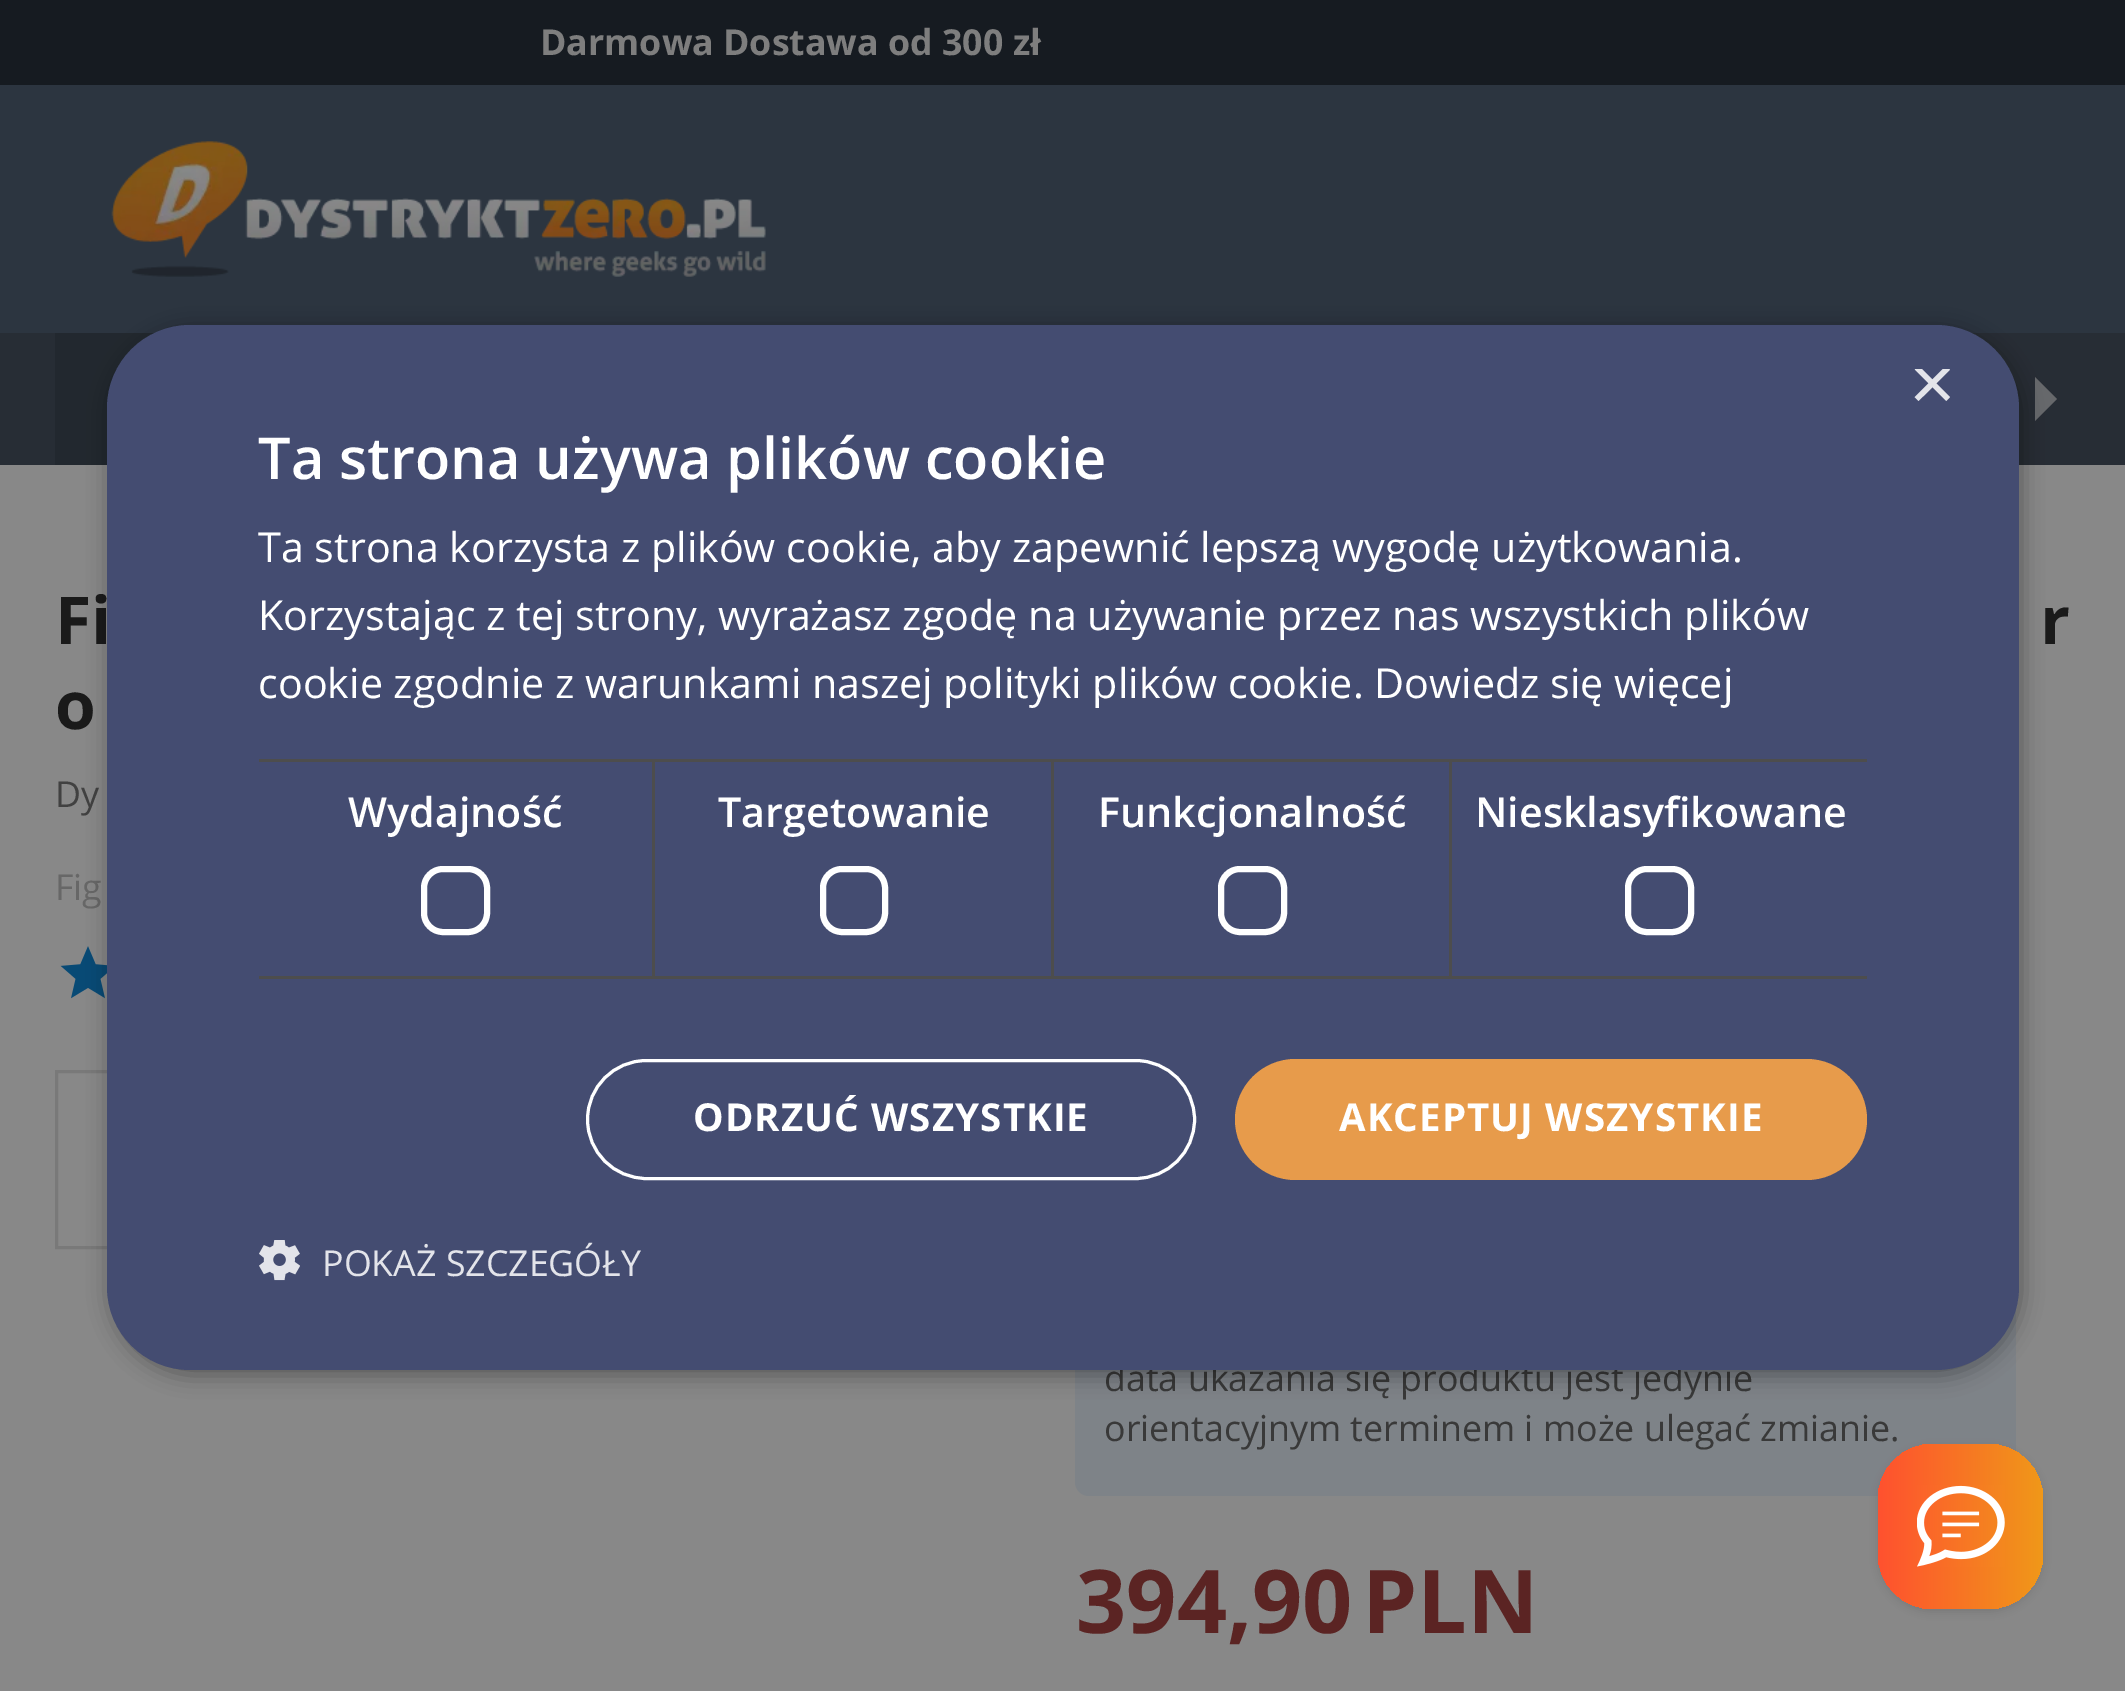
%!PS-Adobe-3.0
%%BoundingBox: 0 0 2125 1691
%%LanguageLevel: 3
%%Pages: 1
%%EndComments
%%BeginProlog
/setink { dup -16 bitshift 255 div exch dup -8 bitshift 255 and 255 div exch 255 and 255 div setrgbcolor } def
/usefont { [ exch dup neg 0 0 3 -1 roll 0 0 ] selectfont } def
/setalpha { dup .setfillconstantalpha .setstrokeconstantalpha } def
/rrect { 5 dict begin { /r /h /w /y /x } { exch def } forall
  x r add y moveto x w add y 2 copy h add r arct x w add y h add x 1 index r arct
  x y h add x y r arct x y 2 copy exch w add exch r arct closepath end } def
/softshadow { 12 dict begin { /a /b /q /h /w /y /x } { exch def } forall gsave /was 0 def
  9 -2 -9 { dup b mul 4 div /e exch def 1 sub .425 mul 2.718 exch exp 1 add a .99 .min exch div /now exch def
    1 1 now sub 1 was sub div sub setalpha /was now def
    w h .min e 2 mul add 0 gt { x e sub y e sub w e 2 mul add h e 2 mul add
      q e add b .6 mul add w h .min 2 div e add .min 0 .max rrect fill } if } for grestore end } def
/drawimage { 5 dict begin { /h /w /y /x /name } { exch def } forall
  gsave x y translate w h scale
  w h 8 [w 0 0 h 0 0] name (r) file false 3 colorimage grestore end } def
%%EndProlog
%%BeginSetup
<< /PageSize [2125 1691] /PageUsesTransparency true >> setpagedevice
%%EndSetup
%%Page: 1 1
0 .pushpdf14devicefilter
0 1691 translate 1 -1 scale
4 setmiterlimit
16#888888 setink
0 0 2125 1691 rectfill
16#2C3540 setink
0 85 2125 248 rectfill
16#161B21 setink
0 0 2125 85 rectfill
/OpenSans-Bold 35.75 usefont
16#7E7E7E setink
540 55 moveto (Darmowa Dostawa od 300 zł) show
(img1.raw) 111 141 655 136 drawimage
16#272D35 setink
0 333 2125 132 rectfill
16#22282F setink
55 333 100 132 rectfill
16#66686B setink
2035 421 moveto 2035 377 lineto 2057 399 lineto closepath fill
/OpenSans-Bold 66 usefont
16#1A1A1A setink
[
    [(Fi) 55 644]
    [(r) 2040 644]
    [(o) 55 729]
] { aload pop moveto show } forall
/OpenSans-Regular 35.75 usefont
16#414141 setink
55 807 moveto (Dy) show
16#676767 setink
55 900 moveto (Fig) show
(img2.raw) 60 946 47 53 drawimage
16#797979 setink
3 setlinewidth
56.5 1071.5 176 176 rectstroke
16#7E8388 setink
1075 1070 941 426 14 rrect fill
16#393939 setink
1104 1391 moveto (data ukazania się produktu jest jedynie) show
1104 1441 moveto (orientacyjnym terminem i może ulegać zmianie.) show
/OpenSans-Bold 88 usefont
16#5B2423 setink
1076 1633 moveto (394,90) show
1362 1633 moveto (PLN) show
gsave
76 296 moveto 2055 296 lineto 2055 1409 lineto 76 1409 lineto closepath 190 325 moveto 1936 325 lineto 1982 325 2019 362 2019 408 curveto 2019 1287 lineto 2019 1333 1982 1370 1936 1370 curveto 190 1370 lineto 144 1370 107 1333 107 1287 curveto 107 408 lineto 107 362 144 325 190 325 curveto closepath eoclip newpath
16#000000 setink
110 330 1911 1045 83 11 0.35 softshadow
grestore
16#444C71 setink
107 325 1912 1045 83 rrect fill
gsave
1909 369 41 41 rectclip
/LiberationSans-Regular 80 usefont
16#E3E4EA setink
1909 410 moveto (×) show
grestore
/OpenSans-SemiBold 57.75 usefont
16#FFFFFF setink
258 479 moveto (Ta strona używa plików cookie) show
/OpenSans-Regular 41.25 usefont
[
    [(Ta strona korzysta z plików cookie, aby zapewnić lepszą wygodę użytkowania.) 258 562]
    [(Korzystając z tej strony, wyrażasz zgodę na używanie przez nas wszystkich plików) 258 630]
    [(cookie zgodnie z warunkami naszej polityki plików cookie. Dowiedz się więcej) 258 698]
] { aload pop moveto show } forall
[
    [259 759 794 3 16#4D4D4D]
    [652 759 3 220 16#4D4D4D]
    [259 976 396 3 16#4D4D4D]
] { aload pop setink rectfill } forall
/OpenSans-SemiBold 41.25 usefont
16#FFFFFF setink
348 827 moveto (Wydajność) show
6 setlinewidth
424 869 63 63 19 rrect stroke
16#4D4D4D setink
1051 759 3 220 rectfill
655 976 398 3 rectfill
16#FFFFFF setink
718 827 moveto (Targetowanie) show
823 869 62 63 19 rrect stroke
[
    [1053 759 814 3 16#4D4D4D]
    [1449 759 3 220 16#4D4D4D]
    [1053 976 814 3 16#4D4D4D]
] { aload pop setink rectfill } forall
16#FFFFFF setink
1098 827 moveto (Funkcjonalność) show
1221 869 63 63 19 rrect stroke
1475 827 moveto (Niesklasyfikowane) show
1628 869 63 63 19 rrect stroke
3 setlinewidth
587.5 1060.5 607 118 59 rrect stroke
/OpenSans-Bold 38.5 usefont
693 1131 moveto 1.1 0 (ODRZUĆ WSZYSTKIE) ashow
16#E79B4B setink
1235 1059 632 121 60.5 rrect fill
16#FFFFFF setink
1339 1131 moveto 1.1 0 (AKCEPTUJ WSZYSTKIE) ashow
(img3.raw) 259 1240 41 41 drawimage
/OpenSans-Regular 35.75 usefont
16#E3E4EA setink
322 1276 moveto (POKAŻ SZCZEGÓŁY) show
16#000000 setink
1878 1447 165 165 55 4 0.1 softshadow
gsave 1878 1444 165 165 55 rrect clip newpath
<< /ShadingType 2 /ColorSpace /DeviceRGB /Coords [1878 1526 2043 1526] /Extend [true true] /Function << /FunctionType 2 /Domain [0 1] /C0 [1 0.318 0.184] /C1 [0.941 0.596 0.098] /N 1 >> >> shfill grestore
(img4.raw) 1917 1485 88 82 drawimage
.poppdf14devicefilter showpage
%%EOF
